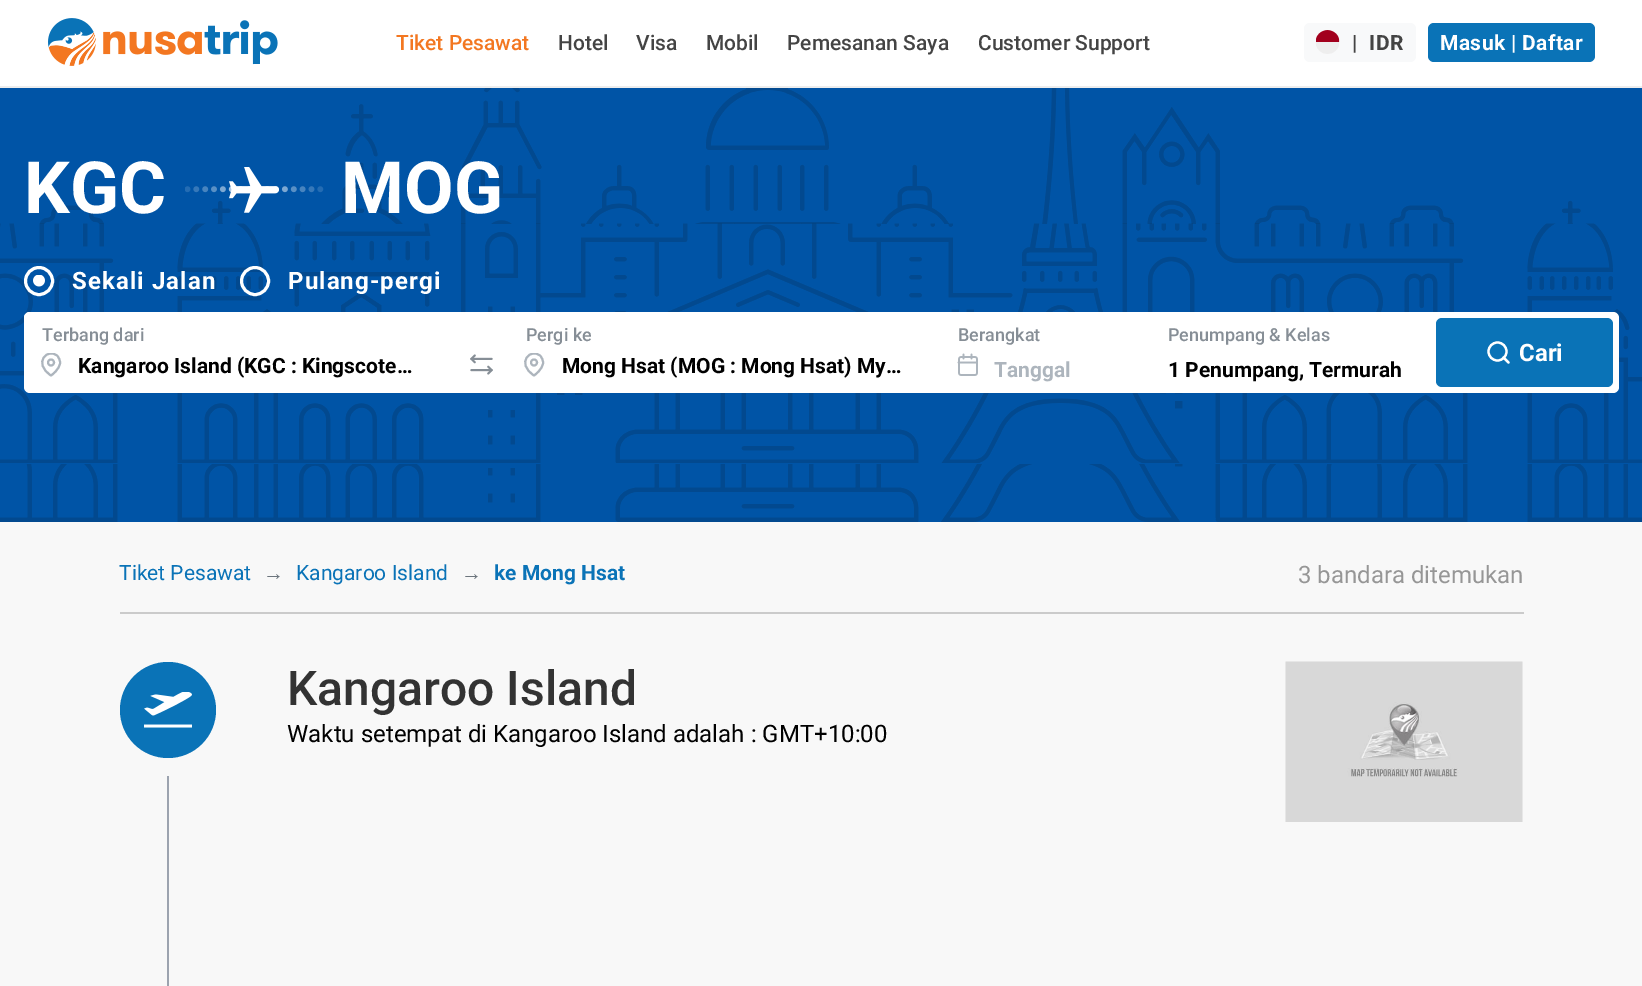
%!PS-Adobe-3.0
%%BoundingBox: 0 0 1642 986
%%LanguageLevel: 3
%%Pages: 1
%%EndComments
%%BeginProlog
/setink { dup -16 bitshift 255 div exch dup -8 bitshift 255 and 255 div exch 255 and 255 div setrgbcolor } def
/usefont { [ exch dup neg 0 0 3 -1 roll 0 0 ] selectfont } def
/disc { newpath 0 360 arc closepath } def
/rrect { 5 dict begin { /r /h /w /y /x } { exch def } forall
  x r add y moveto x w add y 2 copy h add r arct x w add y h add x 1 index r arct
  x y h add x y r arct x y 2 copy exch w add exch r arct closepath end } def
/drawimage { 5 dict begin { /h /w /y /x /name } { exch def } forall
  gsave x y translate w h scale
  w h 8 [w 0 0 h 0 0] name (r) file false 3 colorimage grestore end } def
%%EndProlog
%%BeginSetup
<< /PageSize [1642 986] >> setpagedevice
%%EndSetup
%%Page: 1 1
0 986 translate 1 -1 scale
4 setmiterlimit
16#F8F8F8 setink
0 0 1642 986 rectfill
16#FFFFFF setink
0 0 1642 86 rectfill
16#EDEDED setink
0 86 1642 2 rectfill
(img1.raw) 48 18 230 48 drawimage
/Roboto-Medium 21 usefont
16#F37721 setink
396 50 moveto (Tiket Pesawat) show
16#444444 setink
[
    [(Hotel) 558 50]
    [(Visa) 636 50]
    [(Mobil) 706 50]
    [(Pemesanan Saya) 787 50]
    [(Customer Support) 978 50]
] { aload pop moveto show } forall
16#F8F9FA setink
1304 23 112 39 6 rrect fill
(img2.raw) 1316 30 24 24 drawimage
/Roboto-Bold 21 usefont
16#444444 setink
1352 50 moveto 0.4 0 (|) ashow
1369 50 moveto 0.4 0 (IDR) ashow
16#0A73B7 setink
1428 23 167 39 6 rrect fill
16#FFFFFF setink
1440 50 moveto 0.4 0 (Masuk | Daftar) ashow
16#0054A6 setink
0 88 1642 434 rectfill
(img3.raw) 0 88 1642 434 drawimage
/Roboto-Bold 72 usefont
16#FFFFFF setink
24 213 moveto (KGC) show
(img4.raw) 185 167 139 46 drawimage
341 213 moveto (MOG) show
16#0054A6 setink
0 224 1642 240 rectfill
(img8.raw) 0 223 1642 240 drawimage
16#FFFFFF setink
3 setlinewidth
39 281 13.5 disc stroke
(img5.raw) 33 275 12 12 drawimage
/Roboto-Bold 24 usefont
72 289 moveto 1.1 0 (Sekali Jalan) ashow
255 281 13.5 disc stroke
288 289 moveto 1.1 0 (Pulang-pergi) ashow
24 312 1595 81 6 rrect fill
24 312 432 72 6 rrect fill
/Roboto-Medium 18 usefont
16#868E96 setink
42 341 moveto (Terbang dari) show
gsave
39 353 24 24 rectclip
16#ADB5BD setink
2 setlinewidth
1 setlinecap
1 setlinejoin
60 362.5 moveto 60 369.5 51 375.5 51 375.5 curveto 32 363 48 347 57.5 356 curveto 59 358 60 360 60 362.5 curveto closepath stroke
grestore
16#ADB5BD setink
2 setlinewidth
51 362.5 3 disc stroke
/Roboto-Bold 21 usefont
16#000000 setink
78 373 moveto (Kangaroo Island \(KGC : Kingscote…) show
(img6.raw) 470 354 23 21 drawimage
/Roboto-Medium 18 usefont
16#868E96 setink
526 341 moveto (Pergi ke) show
gsave
522 353 24 24 rectclip
16#ADB5BD setink
1 setlinecap
1 setlinejoin
543 362.5 moveto 543 369.5 534 375.5 534 375.5 curveto 515 363 531 347 540.5 356 curveto 542 358 543 360 543 362.5 curveto closepath stroke
grestore
16#ADB5BD setink
534 362.5 3 disc stroke
/Roboto-Bold 21 usefont
16#000000 setink
562 373 moveto (Mong Hsat \(MOG : Mong Hsat\) My…) show
/Roboto-Medium 18 usefont
16#868E96 setink
958 341 moveto (Berangkat) show
(img7.raw) 957 353 21 23 drawimage
/Roboto-Bold 21 usefont
16#ADB5BD setink
994 377 moveto (Tanggal) show
/Roboto-Medium 18 usefont
16#868E96 setink
1168 341 moveto (Penumpang & Kelas) show
/Roboto-Bold 21 usefont
16#000000 setink
1168 377 moveto (1 Penumpang, Termurah) show
16#0A73B7 setink
1436 318 177 69 6 rrect fill
16#FFFFFF setink
2.2 setlinewidth
1497.5 351.5 9 disc stroke
1 setlinecap
1 setlinejoin
1508.5 362.5 moveto 1503.5 357.5 lineto stroke
/Roboto-Bold 24 usefont
1519 361 moveto (Cari) show
16#CBCBCB setink
120 612 1404 2 rectfill
/Roboto-Regular 21 usefont
16#0A73B7 setink
119 580 moveto (Tiket Pesawat) show
/LiberationSans-Regular 21 usefont
16#6C757D setink
263 580 moveto (→) show
/Roboto-Regular 21 usefont
16#0A73B7 setink
296 580 moveto (Kangaroo Island) show
/LiberationSans-Bold 21 usefont
16#6C757D setink
461 580 moveto (→) show
/Roboto-Bold 21 usefont
16#0A73B7 setink
494 580 moveto (ke Mong Hsat) show
/Roboto-Regular 24 usefont
16#969696 setink
1298 583 moveto (3 bandara ditemukan) show
16#0A73B7 setink
168 710 48 disc fill
(img9.raw) 144 692 48 36 drawimage
16#9CA3AF setink
167 776 2 210 rectfill
/Roboto-Medium 48 usefont
16#333333 setink
287 705 moveto (Kangaroo Island) show
/Roboto-Regular 24 usefont
16#000000 setink
287 742 moveto (Waktu setempat di Kangaroo Island adalah : GMT+10:00) show
(img10.raw) 1285 661 238 161 drawimage
showpage
%%EOF
